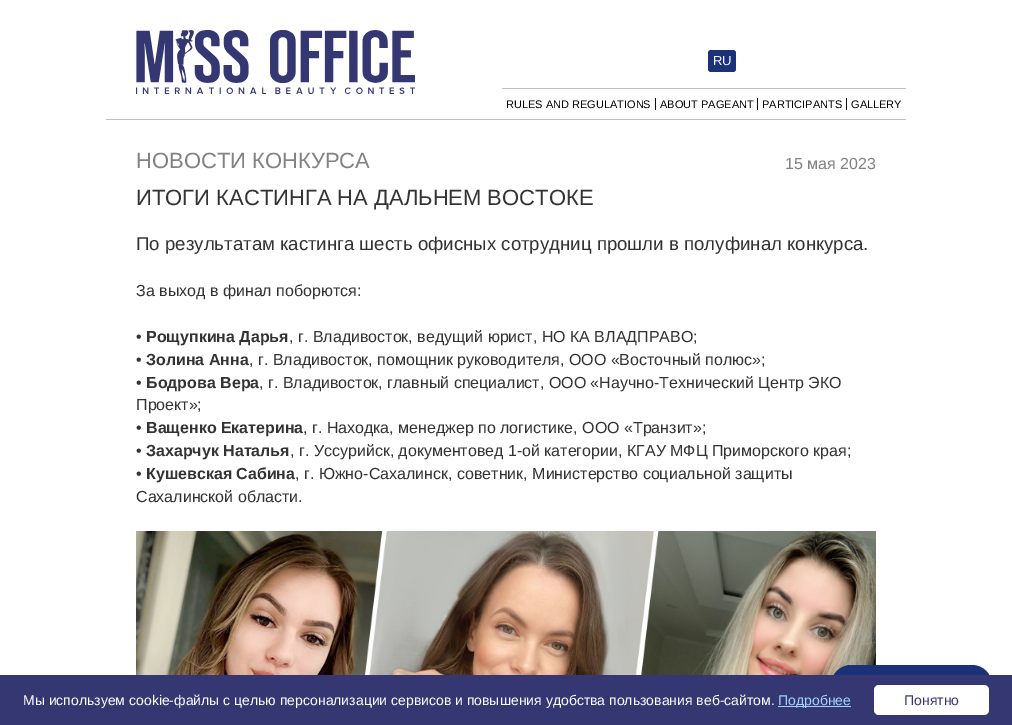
%!PS-Adobe-3.0
%%BoundingBox: 0 0 1012 725
%%LanguageLevel: 3
%%Pages: 1
%%EndComments
%%BeginProlog
/setink { dup -16 bitshift 255 div exch dup -8 bitshift 255 and 255 div exch 255 and 255 div setrgbcolor } def
/usefont { [ exch dup neg 0 0 3 -1 roll 0 0 ] selectfont } def
/rrect { 5 dict begin { /r /h /w /y /x } { exch def } forall
  x r add y moveto x w add y 2 copy h add r arct x w add y h add x 1 index r arct
  x y h add x y r arct x y 2 copy exch w add exch r arct closepath end } def
/drawimage { 5 dict begin { /h /w /y /x /name } { exch def } forall
  gsave x y translate w h scale
  w h 8 [w 0 0 h 0 0] name (r) file false 3 colorimage grestore end } def
%%EndProlog
%%BeginSetup
<< /PageSize [1012 725] >> setpagedevice
%%EndSetup
%%Page: 1 1
0 725 translate 1 -1 scale
4 setmiterlimit
16#FFFFFF setink
0 0 1012 725 rectfill
16#BFBFBF setink
106 119 800 1 rectfill
(img1.raw) 136 30 279 64 drawimage
16#1C3278 setink
708 50 28 22 3 rrect fill
/LiberationSans-Regular 13 usefont
16#FFFFFF setink
713 65 moveto (RU) show
16#BFBFBF setink
502 88 404 1 rectfill
/LiberationSans-Regular 11 usefont
16#000000 setink
506 108 moveto (RULES AND REGULATIONS) show
660 108 moveto (ABOUT PAGEANT) show
16#0F0F0F setink
655 98 1 12 rectfill
16#000000 setink
762 108 moveto (PARTICIPANTS) show
16#0F0F0F setink
757 98 1 12 rectfill
16#000000 setink
851 108 moveto (GALLERY) show
16#0F0F0F setink
846 98 1 12 rectfill
/LiberationSans-Regular 22 usefont
16#828282 setink
136 168 moveto (НОВОСТИ КОНКУРСА) show
/LiberationSans-Regular 16 usefont
785 169 moveto (15 мая 2023) show
/LiberationSans-Regular 22 usefont
16#333333 setink
136 205 moveto (ИТОГИ КАСТИНГА НА ДАЛЬНЕМ ВОСТОКЕ) show
/LiberationSans-Regular 18.65 usefont
136 250 moveto (По результатам кастинга шесть офисных сотрудниц прошли в полуфинал конкурса.) show
/LiberationSans-Regular 16 usefont
136 296 moveto (За выход в финал поборются:) show
136 342 moveto (•) show
/LiberationSans-Bold 16 usefont
146 342 moveto (Рощупкина Дарья) show
/LiberationSans-Regular 16 usefont
289 342 moveto (, г. Владивосток, ведущий юрист, НО КА ВЛАДПРАВО;) show
136 365 moveto (•) show
/LiberationSans-Bold 16 usefont
146 365 moveto (Золина Анна) show
/LiberationSans-Regular 16 usefont
249 365 moveto (, г. Владивосток, помощник руководителя, ООО «Восточный полюс»;) show
136 388 moveto (•) show
/LiberationSans-Bold 16 usefont
146 388 moveto (Бодрова Вера) show
/LiberationSans-Regular 16 usefont
[
    [(, г. Владивосток, главный специалист, ООО «Научно-Технический Центр ЭКО) 259 388]
    [(Проект»;) 136 410]
    [(•) 136 433]
] { aload pop moveto show } forall
/LiberationSans-Bold 16 usefont
146 433 moveto (Ващенко Екатерина) show
/LiberationSans-Regular 16 usefont
303 433 moveto (, г. Находка, менеджер по логистике, ООО «Транзит»;) show
136 456 moveto (•) show
/LiberationSans-Bold 16 usefont
146 456 moveto (Захарчук Наталья) show
/LiberationSans-Regular 16 usefont
290 456 moveto (, г. Уссурийск, документовед 1-ой категории, КГАУ МФЦ Приморского края;) show
136 479 moveto (•) show
/LiberationSans-Bold 16 usefont
146 479 moveto (Кушевская Сабина) show
/LiberationSans-Regular 16 usefont
295 479 moveto (, г. Южно-Сахалинск, советник, Министерство социальной защиты) show
136 502 moveto (Сахалинской области.) show
(img2.raw) 136 531 740 144 drawimage
16#1C3278 setink
831 665 161 40 20 rrect fill
16#343772 setink
0 675 1012 50 rectfill
/LiberationSans-Regular 14 usefont
16#FFFFFF setink
23 705 moveto (Мы используем cookie-файлы с целью персонализации сервисов и повышения удобства пользования веб-сайтом.) show
16#A2D4FF setink
778 706 73 1 rectfill
778 705 moveto (Подробнее) show
16#FFFFFF setink
874 685 115 30 5 rrect fill
16#343772 setink
904 705 moveto (Понятно) show
showpage
%%EOF
